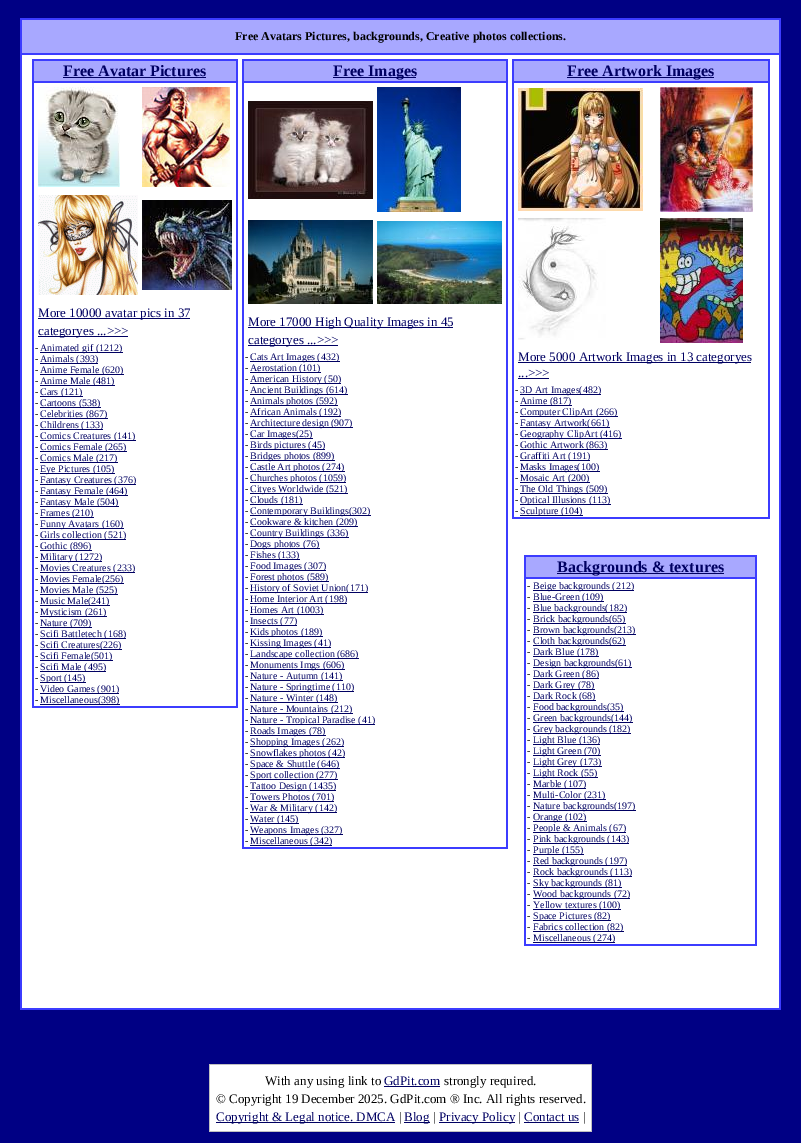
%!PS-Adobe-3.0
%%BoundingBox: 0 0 801 1143
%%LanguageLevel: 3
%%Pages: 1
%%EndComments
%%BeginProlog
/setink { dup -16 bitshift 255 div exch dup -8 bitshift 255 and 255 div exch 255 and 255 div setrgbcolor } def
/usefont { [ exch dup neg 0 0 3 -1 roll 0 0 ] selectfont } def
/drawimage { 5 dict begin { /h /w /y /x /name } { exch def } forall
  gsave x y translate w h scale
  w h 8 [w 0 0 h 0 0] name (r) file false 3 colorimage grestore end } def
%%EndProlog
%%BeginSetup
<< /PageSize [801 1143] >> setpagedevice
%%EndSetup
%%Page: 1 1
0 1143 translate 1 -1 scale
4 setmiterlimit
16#000084 setink
0 0 801 1143 rectfill
16#3C3CFF setink
20 18 761 992 rectfill
16#A8A8FF setink
22 20 757 33 rectfill
/LiberationSerif-Bold 12 usefont
16#000000 setink
235 40 moveto (Free Avatars Pictures, backgrounds, Creative photos collections.) show
[
    [22 55 757 953 16#FFFFFF]
    [32 59 206 649 16#3C3CFF]
    [34 61 202 20 16#A8A8FF]
] { aload pop setink rectfill } forall
/LiberationSerif-Bold 16 usefont
16#000062 setink
63 76 moveto (Free Avatar Pictures) show
63 77 143 1 rectfill
16#FFFFFF setink
34 83 202 623 rectfill
(img1.raw) 38 87 82 100 drawimage
(img2.raw) 142 87 88 100 drawimage
(img3.raw) 38 195 100 100 drawimage
(img4.raw) 142 200 90 90 drawimage
16#000062 setink
38 318 152 1 rectfill
/LiberationSerif-Regular 13 usefont
38 317 moveto (More 10000 avatar pics in 37) show
38 336 90 1 rectfill
38 335 moveto (categoryes ...>>>) show
/LiberationSerif-Regular 10 usefont
16#000000 setink
35 351 moveto (-) show
16#000062 setink
40 352 83 1 rectfill
40 351 moveto (Animated gif \(1212\)) show
16#000000 setink
35 362 moveto (-) show
16#000062 setink
40 363 58 1 rectfill
40 362 moveto (Animals \(393\)) show
16#000000 setink
35 373 moveto (-) show
16#000062 setink
40 374 84 1 rectfill
40 373 moveto (Anime Female \(620\)) show
16#000000 setink
35 384 moveto (-) show
16#000062 setink
40 385 75 1 rectfill
40 384 moveto (Anime Male \(481\)) show
16#000000 setink
35 395 moveto (-) show
16#000062 setink
40 396 43 1 rectfill
40 395 moveto (Cars \(121\)) show
16#000000 setink
35 406 moveto (-) show
16#000062 setink
40 407 61 1 rectfill
40 406 moveto (Cartoons \(538\)) show
16#000000 setink
35 417 moveto (-) show
16#000062 setink
40 418 68 1 rectfill
40 417 moveto (Celebrities \(867\)) show
16#000000 setink
35 428 moveto (-) show
16#000062 setink
40 429 63 1 rectfill
40 428 moveto (Childrens \(133\)) show
16#000000 setink
35 439 moveto (-) show
16#000062 setink
40 440 96 1 rectfill
40 439 moveto (Comics Creatures \(141\)) show
16#000000 setink
35 450 moveto (-) show
16#000062 setink
40 451 87 1 rectfill
40 450 moveto (Comics Female \(265\)) show
16#000000 setink
35 461 moveto (-) show
16#000062 setink
40 462 78 1 rectfill
40 461 moveto (Comics Male \(217\)) show
16#000000 setink
35 472 moveto (-) show
16#000062 setink
40 473 75 1 rectfill
40 472 moveto (Eye Pictures \(105\)) show
16#000000 setink
35 483 moveto (-) show
16#000062 setink
40 484 96 1 rectfill
40 483 moveto (Fantasy Creatures \(376\)) show
16#000000 setink
35 494 moveto (-) show
16#000062 setink
40 495 88 1 rectfill
40 494 moveto (Fantasy Female \(464\)) show
16#000000 setink
35 505 moveto (-) show
16#000062 setink
40 506 79 1 rectfill
40 505 moveto (Fantasy Male \(504\)) show
16#000000 setink
35 516 moveto (-) show
16#000062 setink
40 517 54 1 rectfill
40 516 moveto (Frames \(210\)) show
16#000000 setink
35 527 moveto (-) show
16#000062 setink
40 528 84 1 rectfill
40 527 moveto (Funny Avatars \(160\)) show
16#000000 setink
35 538 moveto (-) show
16#000062 setink
40 539 86 1 rectfill
40 538 moveto (Girls collection \(521\)) show
16#000000 setink
35 549 moveto (-) show
16#000062 setink
40 550 52 1 rectfill
40 549 moveto (Gothic \(896\)) show
16#000000 setink
35 560 moveto (-) show
16#000062 setink
40 561 62 1 rectfill
40 560 moveto (Military \(1272\)) show
16#000000 setink
35 571 moveto (-) show
16#000062 setink
40 572 95 1 rectfill
40 571 moveto (Movies Creatures \(233\)) show
16#000000 setink
35 582 moveto (-) show
16#000062 setink
40 583 84 1 rectfill
40 582 moveto (Movies Female\(256\)) show
16#000000 setink
35 593 moveto (-) show
16#000062 setink
40 594 78 1 rectfill
40 593 moveto (Movies Male \(525\)) show
16#000000 setink
35 604 moveto (-) show
16#000062 setink
40 605 70 1 rectfill
40 604 moveto (Music Male\(241\)) show
16#000000 setink
35 615 moveto (-) show
16#000062 setink
40 616 67 1 rectfill
40 615 moveto (Mysticism \(261\)) show
16#000000 setink
35 626 moveto (-) show
16#000062 setink
40 627 52 1 rectfill
40 626 moveto (Nature \(709\)) show
16#000000 setink
35 637 moveto (-) show
16#000062 setink
40 638 86 1 rectfill
40 637 moveto (Scifi Battletech \(168\)) show
16#000000 setink
35 648 moveto (-) show
16#000062 setink
40 649 82 1 rectfill
40 648 moveto (Scifi Creatures\(226\)) show
16#000000 setink
35 659 moveto (-) show
16#000062 setink
40 660 73 1 rectfill
40 659 moveto (Scifi Female\(501\)) show
16#000000 setink
35 670 moveto (-) show
16#000062 setink
40 671 66 1 rectfill
40 670 moveto (Scifi Male \(495\)) show
16#000000 setink
35 681 moveto (-) show
16#000062 setink
40 682 46 1 rectfill
40 681 moveto (Sport \(145\)) show
16#000000 setink
35 692 moveto (-) show
16#000062 setink
40 693 79 1 rectfill
40 692 moveto (Video Games \(901\)) show
16#000000 setink
35 703 moveto (-) show
16#000062 setink
40 704 80 1 rectfill
40 703 moveto (Miscellaneous\(398\)) show
[
    [242 59 266 790 16#3C3CFF]
    [244 61 262 20 16#A8A8FF]
    [333 77 83 1 16#000062]
] { aload pop setink rectfill } forall
/LiberationSerif-Bold 16 usefont
333 76 moveto (Free Images) show
16#FFFFFF setink
244 83 262 764 rectfill
(img5.raw) 248 101 125 98 drawimage
(img6.raw) 377 87 84 125 drawimage
(img7.raw) 248 220 125 84 drawimage
(img8.raw) 377 221 125 83 drawimage
16#000062 setink
248 327 205 1 rectfill
/LiberationSerif-Regular 13 usefont
248 326 moveto (More 17000 High Quality Images in 45) show
248 345 90 1 rectfill
248 344 moveto (categoryes ...>>>) show
/LiberationSerif-Regular 10 usefont
16#000000 setink
245 360 moveto (-) show
16#000062 setink
250 361 90 1 rectfill
250 360 moveto (Cats Art Images \(432\)) show
16#000000 setink
245 371 moveto (-) show
16#000062 setink
250 372 71 1 rectfill
250 371 moveto (Aerostation \(101\)) show
16#000000 setink
245 382 moveto (-) show
16#000062 setink
250 383 91 1 rectfill
250 382 moveto (American History \(50\)) show
16#000000 setink
245 393 moveto (-) show
16#000062 setink
250 394 98 1 rectfill
250 393 moveto (Ancient Buildings \(614\)) show
16#000000 setink
245 404 moveto (-) show
16#000062 setink
250 405 88 1 rectfill
250 404 moveto (Animals photos \(592\)) show
16#000000 setink
245 415 moveto (-) show
16#000062 setink
250 416 91 1 rectfill
250 415 moveto (African Animals \(192\)) show
16#000000 setink
245 426 moveto (-) show
16#000062 setink
250 427 103 1 rectfill
250 426 moveto (Architecture design \(907\)) show
16#000000 setink
245 437 moveto (-) show
16#000062 setink
250 438 63 1 rectfill
250 437 moveto (Car Images\(25\)) show
16#000000 setink
245 448 moveto (-) show
16#000062 setink
250 449 75 1 rectfill
250 448 moveto (Birds pictures \(45\)) show
16#000000 setink
245 459 moveto (-) show
16#000062 setink
250 460 85 1 rectfill
250 459 moveto (Bridges photos \(899\)) show
16#000000 setink
245 470 moveto (-) show
16#000062 setink
250 471 95 1 rectfill
250 470 moveto (Castle Art photos \(274\)) show
16#000000 setink
245 481 moveto (-) show
16#000062 setink
250 482 96 1 rectfill
250 481 moveto (Churches photos \(1059\)) show
16#000000 setink
245 492 moveto (-) show
16#000062 setink
250 493 98 1 rectfill
250 492 moveto (Cityes Worldwide \(521\)) show
16#000000 setink
245 503 moveto (-) show
16#000062 setink
250 504 53 1 rectfill
250 503 moveto (Clouds \(181\)) show
16#000000 setink
245 514 moveto (-) show
16#000062 setink
250 515 121 1 rectfill
250 514 moveto (Contemporary Buildings\(302\)) show
16#000000 setink
245 525 moveto (-) show
16#000062 setink
250 526 108 1 rectfill
250 525 moveto (Cookware & kitchen \(209\)) show
16#000000 setink
245 536 moveto (-) show
16#000062 setink
250 537 99 1 rectfill
250 536 moveto (Country Buildings \(336\)) show
16#000000 setink
245 547 moveto (-) show
16#000062 setink
250 548 70 1 rectfill
250 547 moveto (Dogs photos \(76\)) show
16#000000 setink
245 558 moveto (-) show
16#000062 setink
250 559 50 1 rectfill
250 558 moveto (Fishes \(133\)) show
16#000000 setink
245 569 moveto (-) show
16#000062 setink
250 570 76 1 rectfill
250 569 moveto (Food Images \(307\)) show
16#000000 setink
245 580 moveto (-) show
16#000062 setink
250 581 79 1 rectfill
250 580 moveto (Forest photos \(589\)) show
16#000000 setink
245 591 moveto (-) show
16#000062 setink
250 592 118 1 rectfill
250 591 moveto (History of Soviet Union\(171\)) show
16#000000 setink
245 602 moveto (-) show
16#000062 setink
250 603 97 1 rectfill
250 602 moveto (Home Interior Art \(198\)) show
16#000000 setink
245 613 moveto (-) show
16#000062 setink
250 614 74 1 rectfill
250 613 moveto (Homes Art \(1003\)) show
16#000000 setink
245 624 moveto (-) show
16#000062 setink
250 625 47 1 rectfill
250 624 moveto (Insects \(77\)) show
16#000000 setink
245 635 moveto (-) show
16#000062 setink
250 636 73 1 rectfill
250 635 moveto (Kids photos \(189\)) show
16#000000 setink
245 646 moveto (-) show
16#000062 setink
250 647 81 1 rectfill
250 646 moveto (Kissing Images \(41\)) show
16#000000 setink
245 657 moveto (-) show
16#000062 setink
250 658 109 1 rectfill
250 657 moveto (Landscape collection \(686\)) show
16#000000 setink
245 668 moveto (-) show
16#000062 setink
250 669 95 1 rectfill
250 668 moveto (Monuments Imgs \(606\)) show
16#000000 setink
245 679 moveto (-) show
16#000062 setink
250 680 93 1 rectfill
250 679 moveto (Nature - Autumn \(141\)) show
16#000000 setink
245 690 moveto (-) show
16#000062 setink
250 691 104 1 rectfill
250 690 moveto (Nature - Springtime \(110\)) show
16#000000 setink
245 701 moveto (-) show
16#000062 setink
250 702 88 1 rectfill
250 701 moveto (Nature - Winter \(148\)) show
16#000000 setink
245 712 moveto (-) show
16#000062 setink
250 713 103 1 rectfill
250 712 moveto (Nature - Mountains \(212\)) show
16#000000 setink
245 723 moveto (-) show
16#000062 setink
250 724 125 1 rectfill
250 723 moveto (Nature - Tropical Paradise \(41\)) show
16#000000 setink
245 734 moveto (-) show
16#000062 setink
250 735 76 1 rectfill
250 734 moveto (Roads Images \(78\)) show
16#000000 setink
245 745 moveto (-) show
16#000062 setink
250 746 94 1 rectfill
250 745 moveto (Shopping Images \(262\)) show
16#000000 setink
245 756 moveto (-) show
16#000062 setink
250 757 95 1 rectfill
250 756 moveto (Snowflakes photos \(42\)) show
16#000000 setink
245 767 moveto (-) show
16#000062 setink
250 768 90 1 rectfill
250 767 moveto (Space & Shuttle \(646\)) show
16#000000 setink
245 778 moveto (-) show
16#000062 setink
250 779 88 1 rectfill
250 778 moveto (Sport collection \(277\)) show
16#000000 setink
245 789 moveto (-) show
16#000062 setink
250 790 86 1 rectfill
250 789 moveto (Tattoo Design \(1435\)) show
16#000000 setink
245 800 moveto (-) show
16#000062 setink
250 801 84 1 rectfill
250 800 moveto (Towers Photos \(701\)) show
16#000000 setink
245 811 moveto (-) show
16#000062 setink
250 812 87 1 rectfill
250 811 moveto (War & Military \(142\)) show
16#000000 setink
245 822 moveto (-) show
16#000062 setink
250 823 49 1 rectfill
250 822 moveto (Water \(145\)) show
16#000000 setink
245 833 moveto (-) show
16#000062 setink
250 834 93 1 rectfill
250 833 moveto (Weapons Images \(327\)) show
16#000000 setink
245 844 moveto (-) show
16#000062 setink
250 845 82 1 rectfill
250 844 moveto (Miscellaneous \(342\)) show
[
    [512 59 258 460 16#3C3CFF]
    [514 61 254 20 16#A8A8FF]
    [567 77 147 1 16#000062]
] { aload pop setink rectfill } forall
/LiberationSerif-Bold 16 usefont
567 76 moveto (Free Artwork Images) show
16#FFFFFF setink
514 83 254 434 rectfill
(img9.raw) 518 88 125 123 drawimage
(img10.raw) 660 87 93 125 drawimage
(img11.raw) 518 218 88 122 drawimage
(img12.raw) 660 218 83 125 drawimage
16#000062 setink
518 362 233 1 rectfill
/LiberationSerif-Regular 13 usefont
518 361 moveto (More 5000 Artwork Images in 13 categoryes) show
518 377 moveto (...>>>) show
518 378 31 1 rectfill
/LiberationSerif-Regular 10 usefont
16#000000 setink
515 393 moveto (-) show
16#000062 setink
520 394 81 1 rectfill
520 393 moveto (3D Art Images\(482\)) show
16#000000 setink
515 404 moveto (-) show
16#000062 setink
520 405 52 1 rectfill
520 404 moveto (Anime \(817\)) show
16#000000 setink
515 415 moveto (-) show
16#000062 setink
520 416 98 1 rectfill
520 415 moveto (Computer ClipArt \(266\)) show
16#000000 setink
515 426 moveto (-) show
16#000062 setink
520 427 90 1 rectfill
520 426 moveto (Fantasy Artwork\(661\)) show
16#000000 setink
515 437 moveto (-) show
16#000062 setink
520 438 102 1 rectfill
520 437 moveto (Geography ClipArt \(416\)) show
16#000000 setink
515 448 moveto (-) show
16#000062 setink
520 449 88 1 rectfill
520 448 moveto (Gothic Artwork \(863\)) show
16#000000 setink
515 459 moveto (-) show
16#000062 setink
520 460 70 1 rectfill
520 459 moveto (Graffiti Art \(191\)) show
16#000000 setink
515 470 moveto (-) show
16#000062 setink
520 471 80 1 rectfill
520 470 moveto (Masks Images\(100\)) show
16#000000 setink
515 481 moveto (-) show
16#000062 setink
520 482 70 1 rectfill
520 481 moveto (Mosaic Art \(200\)) show
16#000000 setink
515 492 moveto (-) show
16#000062 setink
520 493 88 1 rectfill
520 492 moveto (The Old Things \(509\)) show
16#000000 setink
515 503 moveto (-) show
16#000062 setink
520 504 91 1 rectfill
520 503 moveto (Optical Illusions \(113\)) show
16#000000 setink
515 514 moveto (-) show
16#000062 setink
520 515 63 1 rectfill
520 514 moveto (Sculpture \(104\)) show
[
    [524 555 233 391 16#3C3CFF]
    [526 557 229 20 16#A8A8FF]
    [557 573 167 1 16#000062]
] { aload pop setink rectfill } forall
/LiberationSerif-Bold 16 usefont
557 572 moveto (Backgrounds & textures) show
16#FFFFFF setink
526 579 229 365 rectfill
/LiberationSerif-Regular 10 usefont
16#000000 setink
527 589 moveto (-) show
16#000062 setink
533 590 101 1 rectfill
533 589 moveto (Beige backgrounds \(212\)) show
16#000000 setink
527 600 moveto (-) show
16#000062 setink
533 601 71 1 rectfill
533 600 moveto (Blue-Green \(109\)) show
16#000000 setink
527 611 moveto (-) show
16#000062 setink
533 612 94 1 rectfill
533 611 moveto (Blue backgrounds\(182\)) show
16#000000 setink
527 622 moveto (-) show
16#000062 setink
533 623 93 1 rectfill
533 622 moveto (Brick backgrounds\(65\)) show
16#000000 setink
527 633 moveto (-) show
16#000062 setink
533 634 103 1 rectfill
533 633 moveto (Brown backgrounds\(213\)) show
16#000000 setink
527 644 moveto (-) show
16#000062 setink
533 645 93 1 rectfill
533 644 moveto (Cloth backgrounds\(62\)) show
16#000000 setink
527 655 moveto (-) show
16#000062 setink
533 656 66 1 rectfill
533 655 moveto (Dark Blue \(178\)) show
16#000000 setink
527 666 moveto (-) show
16#000062 setink
533 667 99 1 rectfill
533 666 moveto (Design backgrounds\(61\)) show
16#000000 setink
527 677 moveto (-) show
16#000062 setink
533 678 66 1 rectfill
533 677 moveto (Dark Green \(86\)) show
16#000000 setink
527 688 moveto (-) show
16#000062 setink
533 689 62 1 rectfill
533 688 moveto (Dark Grey \(78\)) show
16#000000 setink
527 699 moveto (-) show
16#000062 setink
533 700 63 1 rectfill
533 699 moveto (Dark Rock \(68\)) show
16#000000 setink
527 710 moveto (-) show
16#000062 setink
533 711 91 1 rectfill
533 710 moveto (Food backgrounds\(35\)) show
16#000000 setink
527 721 moveto (-) show
16#000062 setink
533 722 100 1 rectfill
533 721 moveto (Green backgrounds\(144\)) show
16#000000 setink
527 732 moveto (-) show
16#000062 setink
533 733 98 1 rectfill
533 732 moveto (Grey backgrounds \(182\)) show
16#000000 setink
527 743 moveto (-) show
16#000062 setink
533 744 67 1 rectfill
533 743 moveto (Light Blue \(136\)) show
16#000000 setink
527 754 moveto (-) show
16#000062 setink
533 755 68 1 rectfill
533 754 moveto (Light Green \(70\)) show
16#000000 setink
527 765 moveto (-) show
16#000062 setink
533 766 69 1 rectfill
533 765 moveto (Light Grey \(173\)) show
16#000000 setink
527 776 moveto (-) show
16#000062 setink
533 777 65 1 rectfill
533 776 moveto (Light Rock \(55\)) show
16#000000 setink
527 787 moveto (-) show
16#000062 setink
533 788 53 1 rectfill
533 787 moveto (Marble \(107\)) show
16#000000 setink
527 798 moveto (-) show
16#000062 setink
533 799 73 1 rectfill
533 798 moveto (Multi-Color \(231\)) show
16#000000 setink
527 809 moveto (-) show
16#000062 setink
533 810 103 1 rectfill
533 809 moveto (Nature backgrounds\(197\)) show
16#000000 setink
527 820 moveto (-) show
16#000062 setink
533 821 54 1 rectfill
533 820 moveto (Orange \(102\)) show
16#000000 setink
527 831 moveto (-) show
16#000062 setink
533 832 93 1 rectfill
533 831 moveto (People & Animals \(67\)) show
16#000000 setink
527 842 moveto (-) show
16#000062 setink
533 843 96 1 rectfill
533 842 moveto (Pink backgrounds \(143\)) show
16#000000 setink
527 853 moveto (-) show
16#000062 setink
533 854 51 1 rectfill
533 853 moveto (Purple \(155\)) show
16#000000 setink
527 864 moveto (-) show
16#000062 setink
533 865 94 1 rectfill
533 864 moveto (Red backgrounds \(197\)) show
16#000000 setink
527 875 moveto (-) show
16#000062 setink
533 876 99 1 rectfill
533 875 moveto (Rock backgrounds \(113\)) show
16#000000 setink
527 886 moveto (-) show
16#000062 setink
533 887 89 1 rectfill
533 886 moveto (Sky backgrounds \(81\)) show
16#000000 setink
527 897 moveto (-) show
16#000062 setink
533 898 97 1 rectfill
533 897 moveto (Wood backgrounds \(72\)) show
16#000000 setink
527 908 moveto (-) show
16#000062 setink
533 909 88 1 rectfill
533 908 moveto (Yellow textures \(100\)) show
16#000000 setink
527 919 moveto (-) show
16#000062 setink
533 920 78 1 rectfill
533 919 moveto (Space Pictures \(82\)) show
16#000000 setink
527 930 moveto (-) show
16#000062 setink
533 931 91 1 rectfill
533 930 moveto (Fabrics collection \(82\)) show
16#000000 setink
527 941 moveto (-) show
16#000062 setink
533 942 82 1 rectfill
533 941 moveto (Miscellaneous \(274\)) show
16#C0C0C0 setink
209 1064 383 68 rectfill
16#FFFFFF setink
210 1065 381 66 rectfill
/LiberationSerif-Regular 13 usefont
16#000000 setink
265 1085 moveto (With any using link to) show
16#000062 setink
384 1085 moveto (GdPit.com) show
384 1086 56 1 rectfill
16#000000 setink
444 1085 moveto (strongly required.) show
216 1103 moveto (© Copyright 19 December 2025. GdPit.com ® Inc. All rights reserved.) show
16#000062 setink
216 1122 179 1 rectfill
216 1121 moveto (Copyright & Legal notice. DMCA) show
16#000000 setink
399 1121 moveto (|) show
16#000062 setink
404 1122 26 1 rectfill
404 1121 moveto (Blog) show
16#000000 setink
433 1121 moveto (|) show
16#000062 setink
439 1122 76 1 rectfill
439 1121 moveto (Privacy Policy) show
16#000000 setink
518 1121 moveto (|) show
16#000062 setink
524 1121 moveto (Contact us) show
524 1122 55 1 rectfill
16#000000 setink
583 1121 moveto (|) show
showpage
%%EOF
